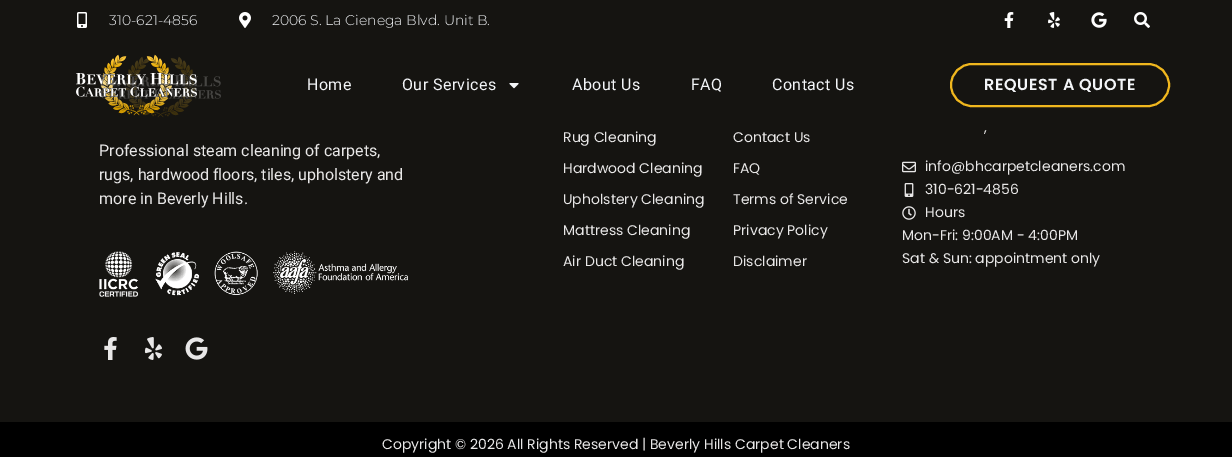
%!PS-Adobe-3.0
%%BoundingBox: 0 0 1232 457
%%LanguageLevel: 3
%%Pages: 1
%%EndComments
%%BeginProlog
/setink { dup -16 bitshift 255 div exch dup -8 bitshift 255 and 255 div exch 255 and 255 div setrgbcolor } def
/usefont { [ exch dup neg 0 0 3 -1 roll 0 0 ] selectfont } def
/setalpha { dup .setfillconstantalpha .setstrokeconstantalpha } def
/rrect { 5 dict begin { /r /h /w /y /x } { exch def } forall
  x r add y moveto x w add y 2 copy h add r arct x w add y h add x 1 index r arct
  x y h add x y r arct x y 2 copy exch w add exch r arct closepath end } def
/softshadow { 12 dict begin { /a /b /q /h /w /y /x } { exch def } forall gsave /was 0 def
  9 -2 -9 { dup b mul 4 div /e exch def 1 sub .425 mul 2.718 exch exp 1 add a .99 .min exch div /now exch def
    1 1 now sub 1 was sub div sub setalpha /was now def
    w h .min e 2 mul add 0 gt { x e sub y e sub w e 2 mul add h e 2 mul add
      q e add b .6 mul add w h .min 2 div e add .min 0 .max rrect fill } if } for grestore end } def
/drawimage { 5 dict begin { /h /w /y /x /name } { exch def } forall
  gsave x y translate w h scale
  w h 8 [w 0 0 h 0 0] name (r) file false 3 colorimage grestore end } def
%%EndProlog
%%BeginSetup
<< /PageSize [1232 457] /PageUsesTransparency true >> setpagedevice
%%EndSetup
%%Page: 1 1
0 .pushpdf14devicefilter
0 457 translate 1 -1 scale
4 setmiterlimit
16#151411 setink
0 0 1232 457 rectfill
(img9.raw) 100 56 121 62 drawimage
(img14.raw) 902 161 14 12 drawimage
gsave
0 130 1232 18 rectclip
16#000000 setink
0 5 1232 130 0 15 0.1 softshadow
grestore
(img1.raw) 77 12 10 16 drawimage
/Montserrat-Light 14 usefont
16#F3F5F8 setink
109 25 moveto (310-621-4856) show
(img2.raw) 239 12 12 16 drawimage
272 25 moveto (2006 S. La Cienega Blvd. Unit B.) show
(img3.raw) 1004 12 10 16 drawimage
(img4.raw) 1048 12 12 16 drawimage
(img5.raw) 1091 12 16 16 drawimage
(img6.raw) 1134 12 16 16 drawimage
0.79 setalpha
16#151411 setink
100 56 121 62 rectfill
1 setalpha
(img7.raw) 76 54 121 62 drawimage
/Roboto-Regular 16 usefont
16#F3F5F8 setink
307 90 moveto 0.4 0 (Home) ashow
402 90 moveto 0.4 0 (Our Services) ashow
(img8.raw) 509 83 10 6 drawimage
572 90 moveto 0.4 0 (About Us) ashow
691 90 moveto 0.4 0 (FAQ) ashow
772 90 moveto 0.4 0 (Contact Us) ashow
16#F0B71E setink
2 setlinewidth
951 64 218 42 21 rrect stroke
/Poppins-SemiBold 16 usefont
16#F3F5F8 setink
984 90 moveto 0.6 0 (REQUEST A QUOTE) ashow
/Roboto-Regular 16 usefont
16#E8E7E7 setink
[
    [(Professional steam cleaning of carpets,) 99 156]
    [(rugs, hardwood floors, tiles, upholstery and) 99 180]
    [(more in Beverly Hills.) 99 204]
] { aload pop moveto show } forall
(img10.raw) 99 251 309 46 drawimage
(img11.raw) 104 337 13 23 drawimage
(img12.raw) 144 337 18 23 drawimage
(img13.raw) 185 337 23 23 drawimage
/Poppins-Regular 14 usefont
[
    [(Rug Cleaning) 563 142]
    [(Hardwood Cleaning) 563 173]
    [(Upholstery Cleaning) 563 204]
    [(Mattress Cleaning) 563 235]
    [(Air Duct Cleaning) 563 266]
    [(Contact Us) 733 142]
    [(FAQ) 733 173]
    [(Terms of Service) 733 204]
    [(Privacy Policy) 733 235]
    [(Disclaimer) 733 266]
    [(,) 984 132]
    [(info@bhcarpetcleaners.com) 925 171]
] { aload pop moveto show } forall
(img15.raw) 904 183 10 14 drawimage
925 194 moveto (310-621-4856) show
(img16.raw) 902 206 14 14 drawimage
[
    [(Hours) 925 217]
    [(Mon-Fri: 9:00AM - 4:00PM) 902 240]
    [(Sat & Sun: appointment only) 902 263]
] { aload pop moveto show } forall
16#000000 setink
0 422 1232 35 rectfill
16#E8E7E7 setink
382 449 moveto (Copyright © 2026 All Rights Reserved | Beverly Hills Carpet Cleaners) show
.poppdf14devicefilter showpage
%%EOF
